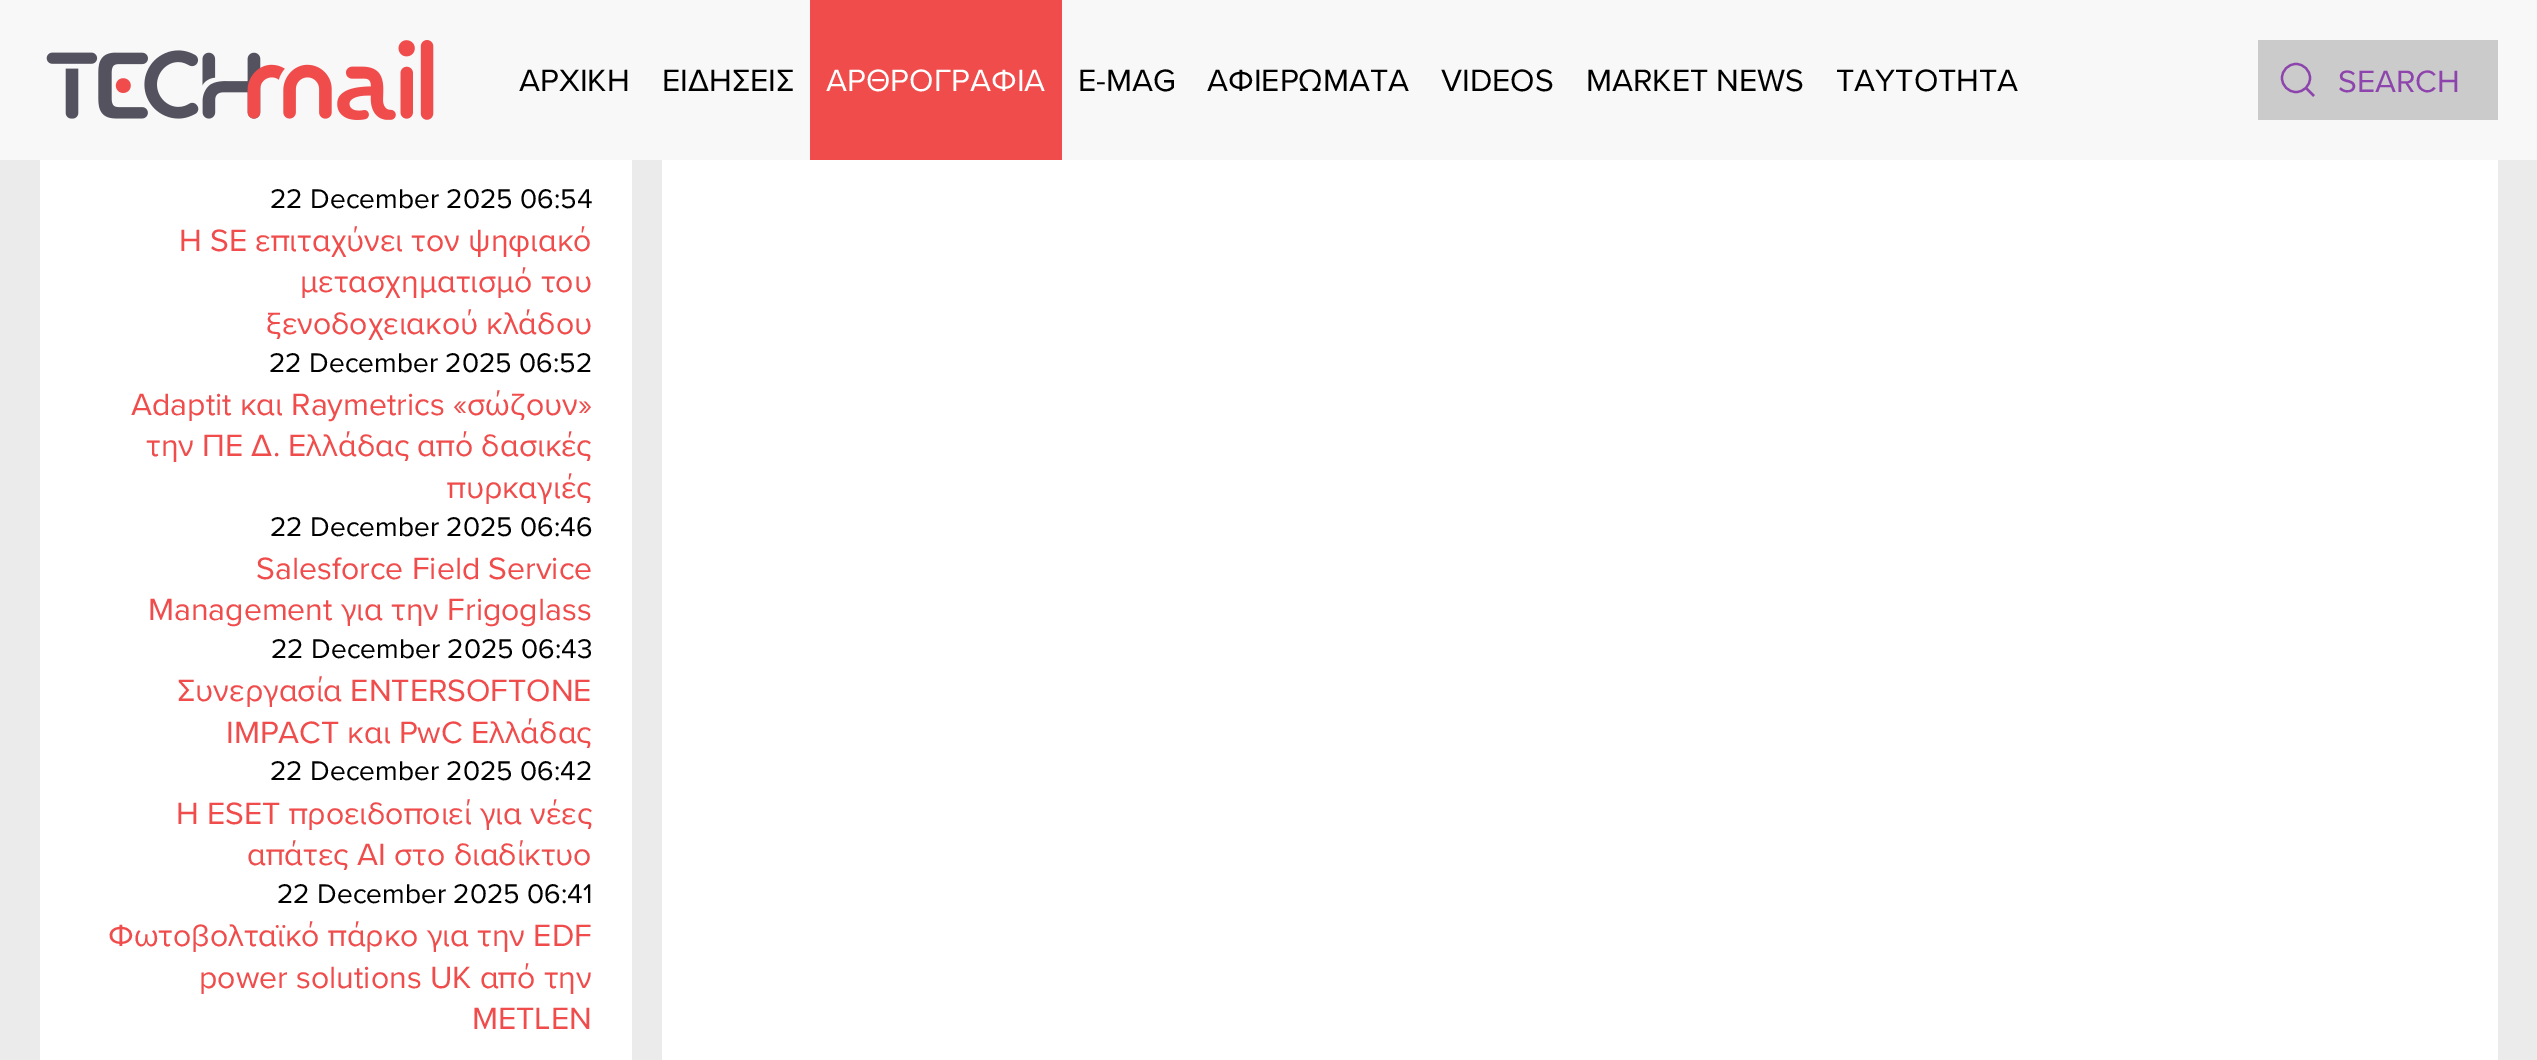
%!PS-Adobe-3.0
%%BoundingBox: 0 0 2537 1060
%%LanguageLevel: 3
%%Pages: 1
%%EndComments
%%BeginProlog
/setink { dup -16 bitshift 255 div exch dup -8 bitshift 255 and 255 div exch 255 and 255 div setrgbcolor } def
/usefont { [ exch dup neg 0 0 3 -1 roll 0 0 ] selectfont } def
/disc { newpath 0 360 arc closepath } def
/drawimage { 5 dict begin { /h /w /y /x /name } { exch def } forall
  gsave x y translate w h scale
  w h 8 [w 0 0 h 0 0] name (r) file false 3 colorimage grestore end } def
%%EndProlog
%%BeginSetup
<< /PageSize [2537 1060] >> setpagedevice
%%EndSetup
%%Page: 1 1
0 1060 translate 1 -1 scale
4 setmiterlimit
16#EBEBEC setink
0 0 2537 1060 rectfill
16#F8F8F8 setink
0 0 2537 160 rectfill
(img1.raw) 46 40 388 80 drawimage
/ProximaNova-Regular 32 usefont
16#000000 setink
519 91 moveto (ΑΡΧΙΚΗ) show
662 91 moveto (ΕΙΔΗΣΕΙΣ) show
16#F04C4C setink
810 0 252 160 rectfill
16#FFFFFF setink
826 91 moveto (ΑΡΘΡΟΓΡΑΦΙΑ) show
16#000000 setink
[
    [(E-MAG) 1078 91]
    [(ΑΦΙΕΡΩΜΑΤΑ) 1207 91]
    [(VIDEOS) 1441 91]
    [(MARKET NEWS) 1586 91]
    [(TAYTOTHTA) 1836 91]
] { aload pop moveto show } forall
16#CBCBCB setink
2258 40 240 80 rectfill
16#8E44AD setink
2.2 setlinewidth
2296 78 14 disc stroke
2306 88 moveto 2314 96 lineto closepath stroke
2338 92 moveto (SEARCH) show
16#FFFFFF setink
40 160 592 900 rectfill
/ProximaNova-Regular 28 usefont
16#000000 setink
270 208 moveto (22 December 2025 06:54) show
/ProximaNova-Regular 32 usefont
16#F04C4C setink
[
    [(Η SE επιταχύνει τον ψηφιακό) 179 251]
    [(μετασχηματισμό του) 300 292]
    [(ξενοδοχειακού κλάδου) 266 334]
] { aload pop moveto show } forall
/ProximaNova-Regular 28 usefont
16#000000 setink
269 372 moveto (22 December 2025 06:52) show
/ProximaNova-Regular 32 usefont
16#F04C4C setink
[
    [(Adaptit και Raymetrics «σώζουν») 131 415]
    [(την ΠΕ Δ. Ελλάδας από δασικές) 146 456]
    [(πυρκαγιές) 447 498]
] { aload pop moveto show } forall
/ProximaNova-Regular 28 usefont
16#000000 setink
270 536 moveto (22 December 2025 06:46) show
/ProximaNova-Regular 32 usefont
16#F04C4C setink
256 579 moveto (Salesforce Field Service) show
148 620 moveto (Management για την Frigoglass) show
/ProximaNova-Regular 28 usefont
16#000000 setink
271 658 moveto (22 December 2025 06:43) show
/ProximaNova-Regular 32 usefont
16#F04C4C setink
177 701 moveto (Συνεργασία ENTERSOFTONE) show
226 743 moveto (IMPACT και PwC Ελλάδας) show
/ProximaNova-Regular 28 usefont
16#000000 setink
270 780 moveto (22 December 2025 06:42) show
/ProximaNova-Regular 32 usefont
16#F04C4C setink
176 824 moveto (Η ESET προειδοποιεί για νέες) show
247 865 moveto (απάτες AI στο διαδίκτυο) show
/ProximaNova-Regular 28 usefont
16#000000 setink
277 903 moveto (22 December 2025 06:41) show
/ProximaNova-Regular 32 usefont
16#F04C4C setink
[
    [(Φωτοβολταϊκό πάρκο για την EDF) 108 946]
    [(power solutions UK από την) 199 988]
    [(METLEN) 472 1029]
] { aload pop moveto show } forall
16#FFFFFF setink
662 160 1836 900 rectfill
showpage
%%EOF
